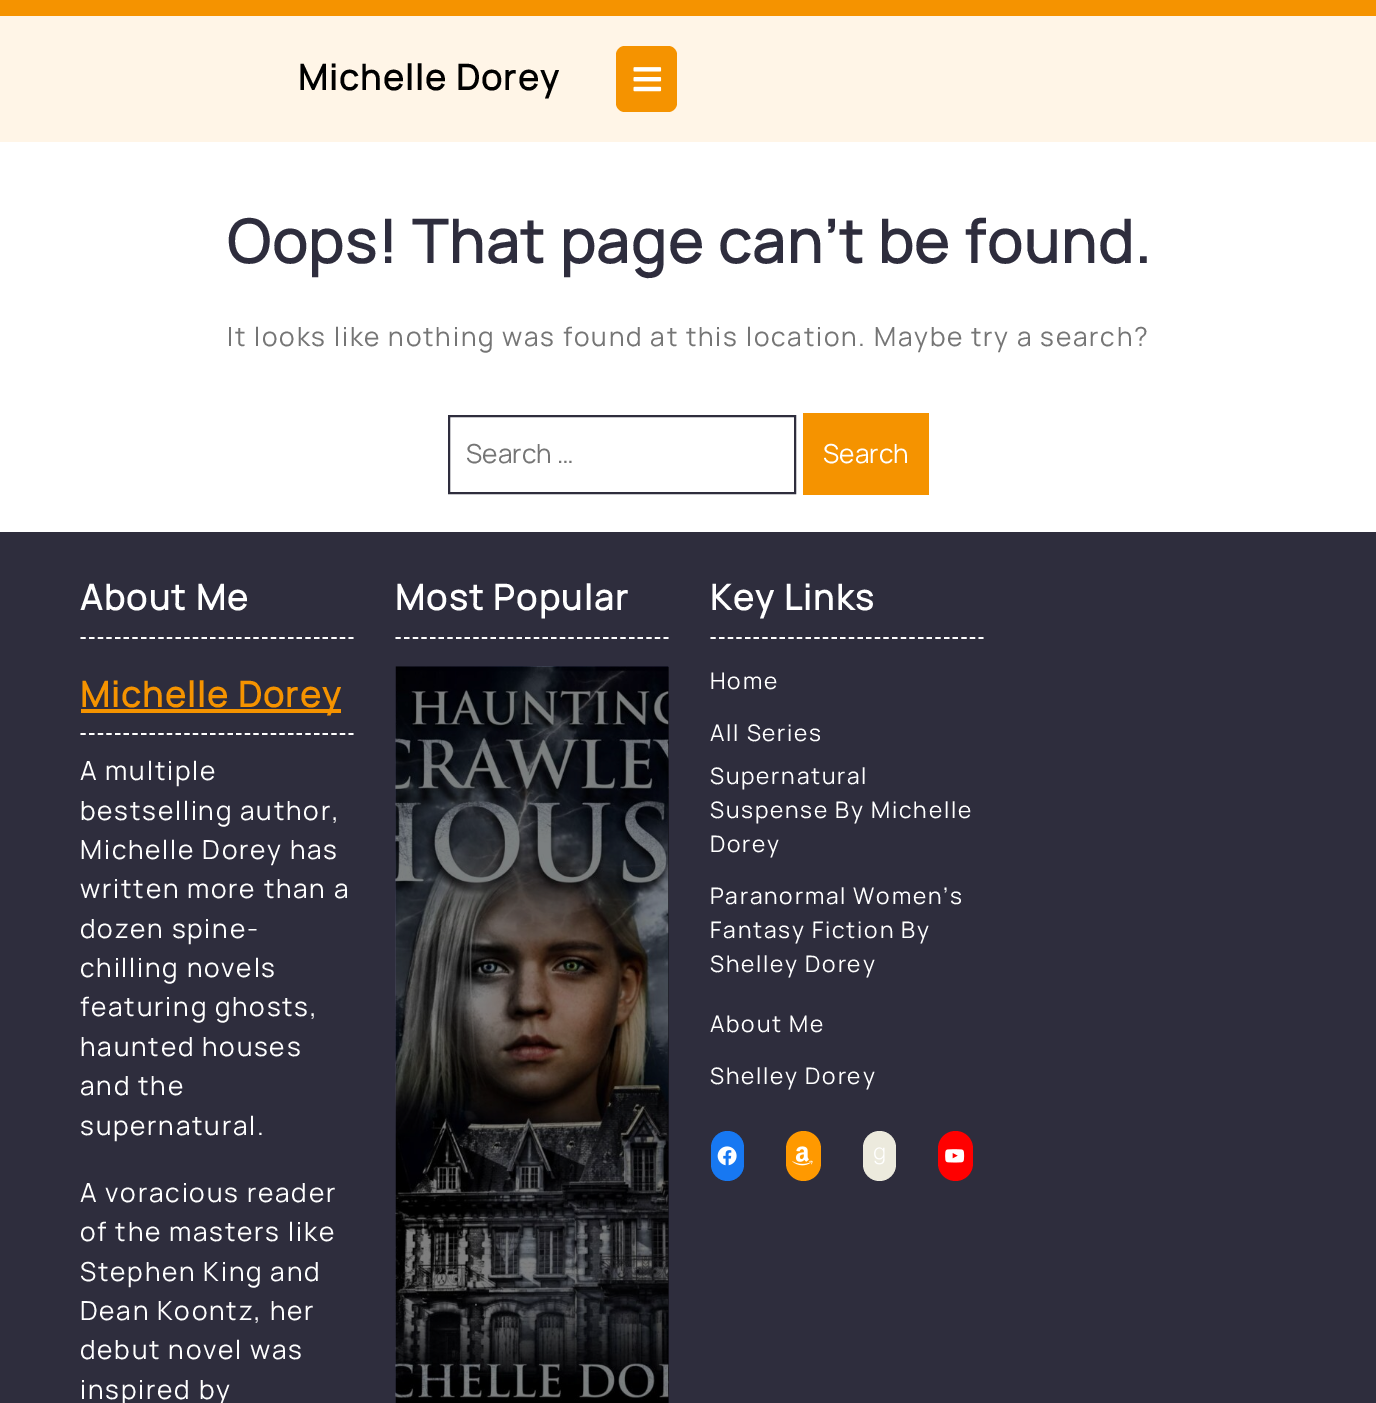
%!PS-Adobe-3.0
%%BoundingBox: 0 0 1376 1403
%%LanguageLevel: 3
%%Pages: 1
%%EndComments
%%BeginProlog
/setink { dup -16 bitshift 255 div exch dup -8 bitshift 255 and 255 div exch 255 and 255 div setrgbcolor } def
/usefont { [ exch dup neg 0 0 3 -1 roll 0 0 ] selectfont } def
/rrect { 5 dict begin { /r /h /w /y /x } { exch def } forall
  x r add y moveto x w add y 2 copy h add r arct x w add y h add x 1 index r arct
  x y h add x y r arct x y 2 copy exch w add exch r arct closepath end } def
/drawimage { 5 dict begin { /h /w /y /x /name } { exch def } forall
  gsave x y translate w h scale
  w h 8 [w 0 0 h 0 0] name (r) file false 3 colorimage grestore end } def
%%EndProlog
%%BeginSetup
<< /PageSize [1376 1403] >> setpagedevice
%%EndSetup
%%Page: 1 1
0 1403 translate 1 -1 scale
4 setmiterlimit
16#FFFFFF setink
0 0 1376 1403 rectfill
16#F59300 setink
0 0 1376 16 rectfill
16#FFF5E7 setink
0 16 1376 126 rectfill
/Manrope-Bold 35 usefont
16#000000 setink
298 90 moveto 1.75 0 (Michelle Dorey) ashow
16#F59300 setink
616 46 61 66 9 rrect fill
(img1.raw) 633 67 29 25 drawimage
/Manrope-Bold 59.2 usefont
16#2E2D3D setink
227 263 moveto 1.75 0 (Oops! That page can’t be found.) ashow
/Manrope-ExtraLight 26.25 usefont
16#757575 setink
227 346 moveto 1.75 0 (It looks like nothing was found at this location. Maybe try a search?) ashow
16#2E2D3D setink
2 setlinewidth
449 416 346 77 rectstroke
16#757575 setink
466 463 moveto (Search …) show
16#F59300 setink
803 413 126 82 rectfill
16#FFFFFF setink
823 463 moveto (Search) show
16#2E2D3D setink
0 532 1376 871 rectfill
16#17171F setink
668 667 1 736 rectfill
16#FFFFFF setink
1.8 setlinewidth
[5.25 3.4] 0 setdash
80.5 638 moveto 353.5 638 lineto stroke
/Manrope-Bold 35 usefont
80 610 moveto 1.75 0 (About Me) ashow
80.5 734 moveto 353.5 734 lineto stroke
16#F59300 setink
81 709 260 4 rectfill
80 707 moveto 1.75 0 (Michelle Dorey) ashow
/Manrope-ExtraLight 26.25 usefont
16#FFFFFF setink
80 780 moveto 1.75 0 (A multiple) ashow
80 820 moveto 1.75 0 (bestselling author,) ashow
80 859 moveto 1.75 0 (Michelle Dorey has) ashow
80 898 moveto 1.75 0 (written more than a) ashow
80 938 moveto 1.75 0 (dozen spine-) ashow
80 977 moveto 1.75 0 (chilling novels) ashow
80 1016 moveto 1.75 0 (featuring ghosts,) ashow
80 1056 moveto 1.75 0 (haunted houses) ashow
80 1095 moveto 1.75 0 (and the) ashow
80 1135 moveto 1.75 0 (supernatural.) ashow
80 1202 moveto 1.75 0 (A voracious reader) ashow
80 1241 moveto 1.75 0 (of the masters like) ashow
80 1281 moveto 1.75 0 (Stephen King and) ashow
80 1320 moveto 1.75 0 (Dean Koontz, her) ashow
80 1359 moveto 1.75 0 (debut novel was) ashow
80 1399 moveto 1.75 0 (inspired by) ashow
395.5 638 moveto 668.5 638 lineto stroke
/Manrope-Bold 35 usefont
395 610 moveto 1.75 0 (Most Popular) ashow
(img2.raw) 395 666 274 737 drawimage
710.5 638 moveto 983.5 638 lineto stroke
710 610 moveto 1.75 0 (Key Links) ashow
/Manrope-ExtraLight 22.75 usefont
710 689 moveto 1.75 0 (Home) ashow
710 741 moveto 1.75 0 (All Series) ashow
710 784 moveto 1.75 0 (Supernatural) ashow
710 818 moveto 1.75 0 (Suspense By Michelle) ashow
710 852 moveto 1.75 0 (Dorey) ashow
710 904 moveto 1.75 0 (Paranormal Women’s) ashow
710 938 moveto 1.75 0 (Fantasy Fiction By) ashow
710 972 moveto 1.75 0 (Shelley Dorey) ashow
710 1032 moveto 1.75 0 (About Me) ashow
710 1084 moveto 1.75 0 (Shelley Dorey) ashow
16#1778F2 setink
711 1131 33 50 16.5 rrect fill
(img3.raw) 717 1146 20 20 drawimage
16#FF9900 setink
786 1131 35 50 17.5 rrect fill
(img4.raw) 792 1146 21 20 drawimage
16#ECEADD setink
863 1131 33 50 16.5 rrect fill
(img5.raw) 874 1147 11 18 drawimage
16#FF0000 setink
938 1131 35 50 17.5 rrect fill
(img6.raw) 945 1149 20 14 drawimage
showpage
%%EOF
